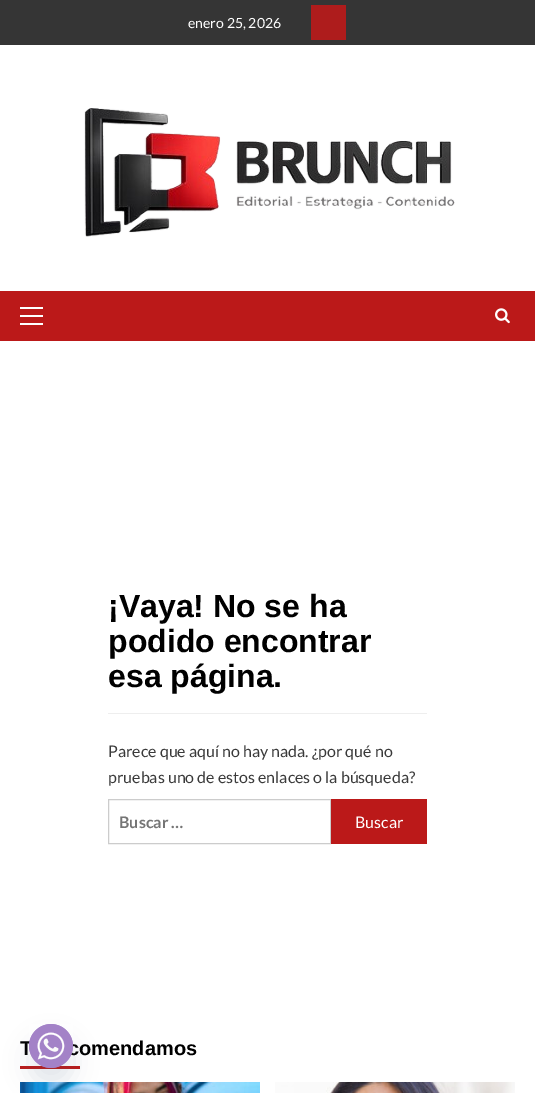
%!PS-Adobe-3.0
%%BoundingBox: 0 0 535 1093
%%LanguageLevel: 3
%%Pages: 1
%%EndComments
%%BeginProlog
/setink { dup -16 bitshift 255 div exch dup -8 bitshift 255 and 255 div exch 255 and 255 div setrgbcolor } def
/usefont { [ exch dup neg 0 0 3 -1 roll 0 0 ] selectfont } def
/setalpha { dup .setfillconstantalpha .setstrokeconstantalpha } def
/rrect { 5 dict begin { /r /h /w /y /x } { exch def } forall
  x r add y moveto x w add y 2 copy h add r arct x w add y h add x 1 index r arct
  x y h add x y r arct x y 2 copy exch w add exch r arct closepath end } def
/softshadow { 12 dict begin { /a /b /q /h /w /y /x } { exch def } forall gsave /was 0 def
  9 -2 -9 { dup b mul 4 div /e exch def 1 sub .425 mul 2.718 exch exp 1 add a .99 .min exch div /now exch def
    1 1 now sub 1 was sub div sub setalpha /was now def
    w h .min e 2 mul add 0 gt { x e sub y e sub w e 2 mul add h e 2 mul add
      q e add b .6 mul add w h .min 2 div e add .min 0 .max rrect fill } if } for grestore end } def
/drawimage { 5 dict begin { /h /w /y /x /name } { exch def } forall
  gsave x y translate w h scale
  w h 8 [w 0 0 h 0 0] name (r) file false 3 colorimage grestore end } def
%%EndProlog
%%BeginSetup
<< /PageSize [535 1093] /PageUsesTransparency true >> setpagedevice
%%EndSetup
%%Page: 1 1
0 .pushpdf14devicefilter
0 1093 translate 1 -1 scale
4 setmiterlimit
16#FFFFFF setink
0 0 535 1093 rectfill
16#353535 setink
0 0 535 45 rectfill
/Lato-Regular 14 usefont
16#FFFFFF setink
188 28 moveto (enero 25, 2026) show
16#AE1C1C setink
311 5 35 35 rectfill
(img1.raw) 84 108 371 129 drawimage
[
    [0 291 535 50 16#BB1919]
    [20 315 23 2 16#FFFFFF]
    [20 307 23 2 16#FFFFFF]
    [20 323 23 2 16#FFFFFF]
] { aload pop setink rectfill } forall
(img2.raw) 495 308 15 16 drawimage
16#EEEEEE setink
108 713 319 1 rectfill
/LiberationSans-Bold 32 usefont
16#000000 setink
[
    [(¡Vaya! No se ha) 108 617]
    [(podido encontrar) 108 652]
    [(esa página.) 108 687]
] { aload pop moveto show } forall
/Lato-Regular 16 usefont
16#3A3A3A setink
108 757 moveto (Parece que aquí no hay nada. ¿por qué no) show
108 783 moveto (pruebas uno de estos enlaces o la búsqueda?) show
16#CCCCCC setink
108.5 799.5 222 44 rectstroke
/Lato-Bold 16 usefont
16#757575 setink
119 828 moveto (Buscar …) show
16#BB1919 setink
331 799 96 45 rectfill
/Lato-Regular 16 usefont
16#FFFFFF setink
355 828 moveto (Buscar) show
/LiberationSans-Bold 20 usefont
16#000000 setink
20 1055 moveto (T) show
68 1055 moveto (comendamos) show
16#BB1919 setink
20 1066 60 3 rectfill
(img3.raw) 20 1082 240 11 drawimage
(img4.raw) 275 1082 240 11 drawimage
16#49687E setink
29 1040 44 44 22 12 0.16 softshadow
(img5.raw) 29 1024 44 44 drawimage
.poppdf14devicefilter showpage
%%EOF
